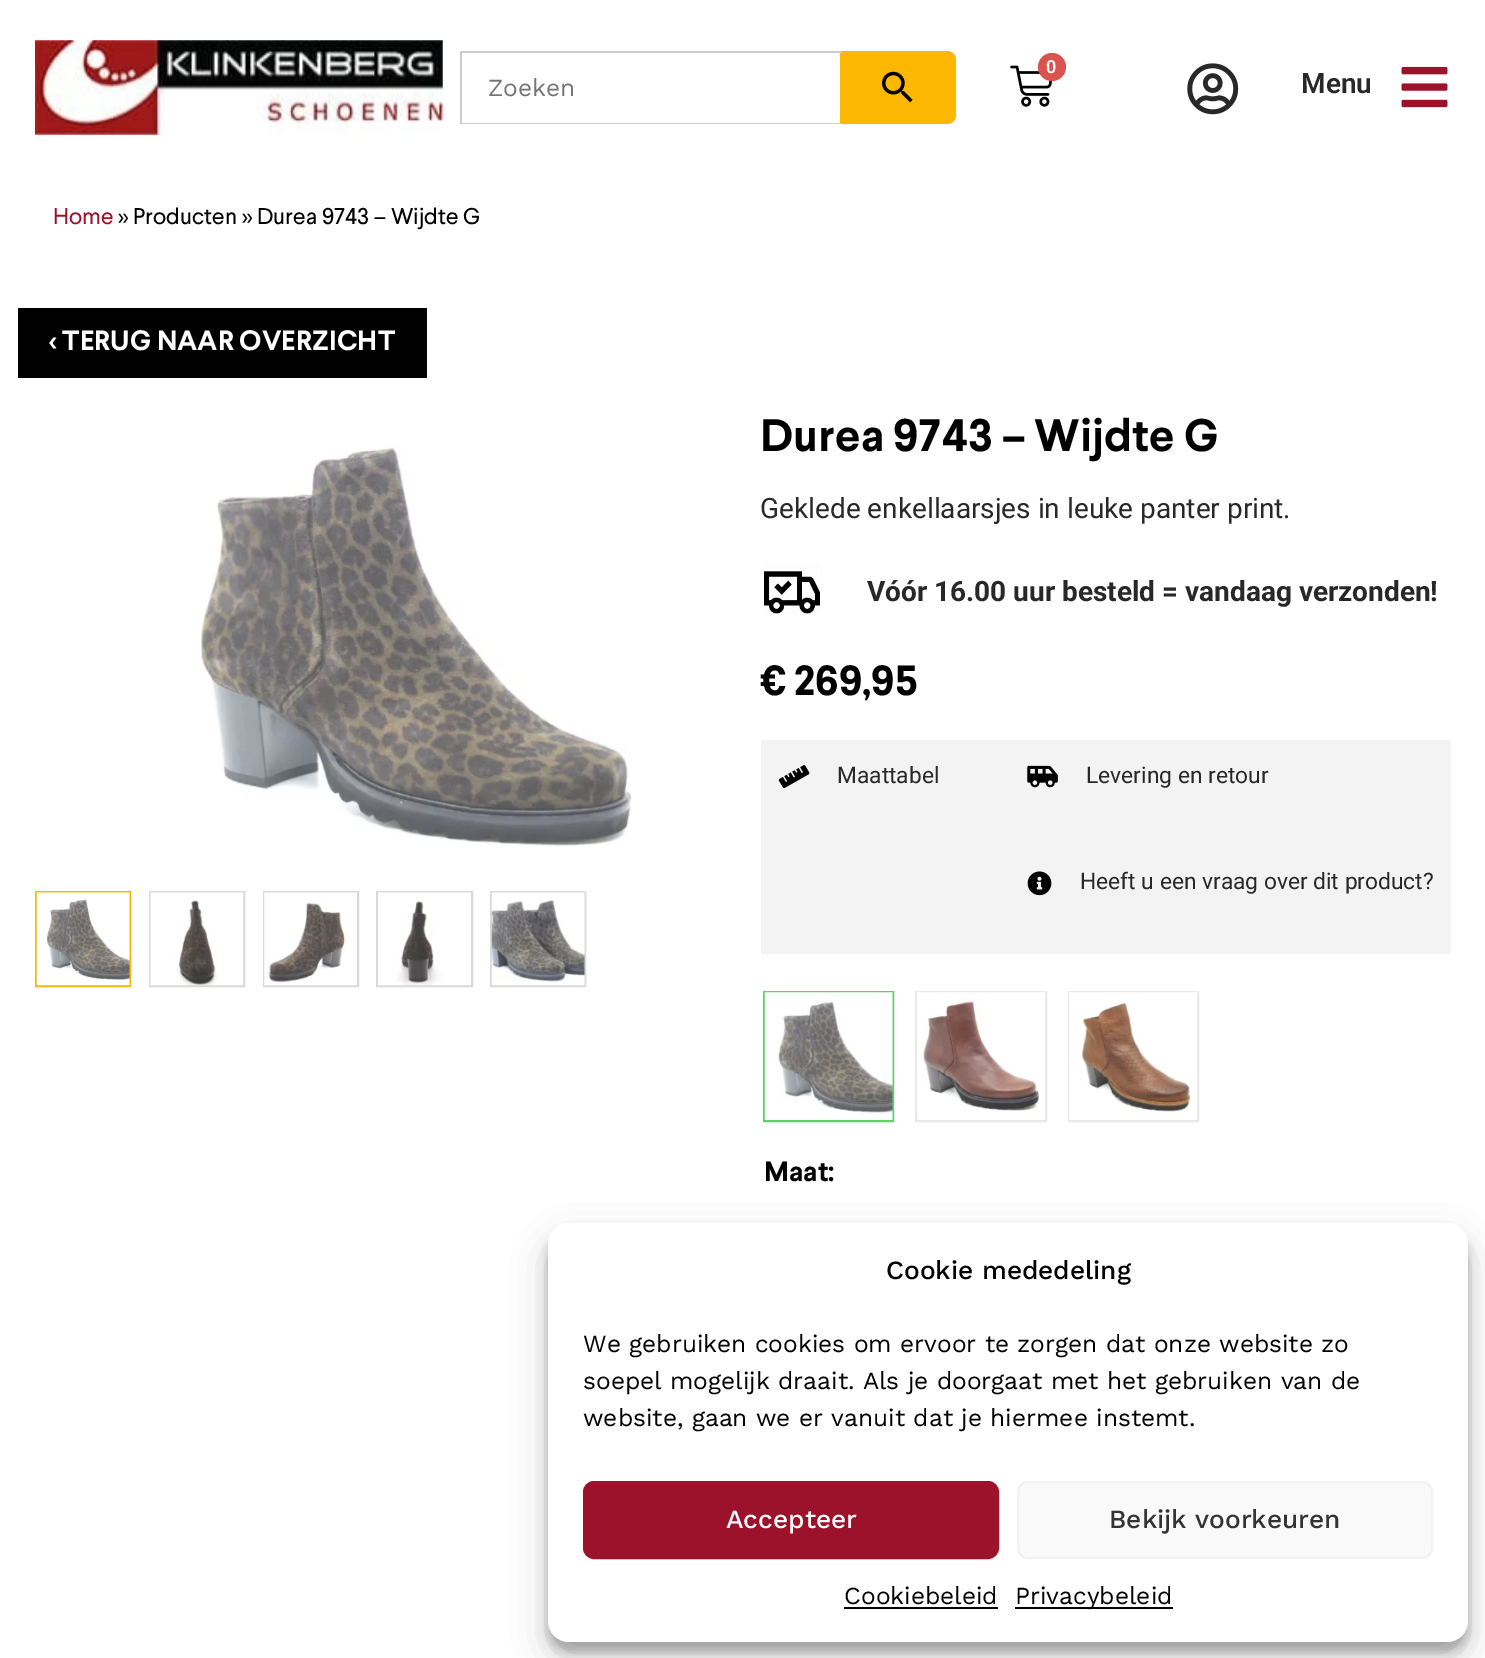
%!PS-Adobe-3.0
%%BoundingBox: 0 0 1485 1658
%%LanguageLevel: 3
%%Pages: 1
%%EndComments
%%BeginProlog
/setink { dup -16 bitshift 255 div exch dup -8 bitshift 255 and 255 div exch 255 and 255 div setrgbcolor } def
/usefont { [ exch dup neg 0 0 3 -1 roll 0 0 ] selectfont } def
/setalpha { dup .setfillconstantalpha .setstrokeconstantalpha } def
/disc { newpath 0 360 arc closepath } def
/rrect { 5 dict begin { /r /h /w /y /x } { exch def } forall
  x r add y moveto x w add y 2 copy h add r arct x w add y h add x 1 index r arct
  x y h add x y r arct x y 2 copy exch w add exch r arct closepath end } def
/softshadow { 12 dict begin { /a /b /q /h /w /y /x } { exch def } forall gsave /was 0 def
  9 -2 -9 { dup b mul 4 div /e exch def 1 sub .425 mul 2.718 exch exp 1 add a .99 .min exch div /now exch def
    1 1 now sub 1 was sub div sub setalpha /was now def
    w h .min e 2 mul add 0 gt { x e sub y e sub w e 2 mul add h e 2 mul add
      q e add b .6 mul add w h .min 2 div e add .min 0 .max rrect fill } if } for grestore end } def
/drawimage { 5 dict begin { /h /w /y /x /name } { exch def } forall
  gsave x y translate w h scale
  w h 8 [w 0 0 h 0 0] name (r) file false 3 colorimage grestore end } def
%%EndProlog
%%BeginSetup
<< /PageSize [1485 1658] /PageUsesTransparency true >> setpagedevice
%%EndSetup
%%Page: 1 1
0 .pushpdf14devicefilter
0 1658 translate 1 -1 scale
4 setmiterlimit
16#FFFFFF setink
0 0 1485 1658 rectfill
(img1.raw) 35 40 408 95 drawimage
16#FCB800 setink
840 51 moveto 947 51 lineto 952 51 956 55 956 60 curveto 956 115 lineto 956 120 952 124 947 124 curveto 840 124 lineto closepath fill
[
    [460 51 382 2 16#CCCCCC]
    [460 123 382 1 16#CCCCCC]
    [460 51 2 73 16#CCCCCC]
] { aload pop setink rectfill } forall
/WorkSans-Regular 24.5 usefont
16#757575 setink
488 96 moveto (Zoeken) show
(img2.raw) 882 71 31 32 drawimage
(img3.raw) 1010 65 43 42 drawimage
16#D9534F setink
1052 67 14 disc fill
/Roboto-SemiBold 18 usefont
16#FFFFFF setink
1046 73 moveto (0) show
(img4.raw) 1187 63 52 52 drawimage
/Roboto-SemiBold 28 usefont
16#282828 setink
1301 93 moveto (Menu) show
(img5.raw) 1401 66 47 42 drawimage
/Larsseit-Regular 22.75 usefont
16#9C122B setink
53 224 moveto (Home) show
16#000000 setink
118 224 moveto (» Producten » Durea 9743 – Wijdte G) show
18 308 409 70 rectfill
/Larsseit-Bold 28 usefont
16#FFFFFF setink
49 350 moveto (‹ TERUG NAAR OVERZICHT) show
(img6.raw) 201 447 431 399 drawimage
16#FCB800 setink
2 setlinewidth
36 892 94 94 rectstroke
(img7.raw) 36 892 94 94 drawimage
16#D9D9D9 setink
150 892 94 94 rectstroke
(img8.raw) 150 892 94 94 drawimage
264 892 94 94 rectstroke
(img9.raw) 264 892 93 94 drawimage
377 892 95 94 rectstroke
(img10.raw) 378 892 93 94 drawimage
491 892 94 94 rectstroke
(img11.raw) 491 892 94 94 drawimage
/Larsseit-Bold 45.5 usefont
16#000000 setink
760 451 moveto (Durea 9743 – Wijdte G) show
/Roboto-Regular 28 usefont
16#282828 setink
760 518 moveto (Geklede enkellaarsjes in leuke panter print.) show
(img12.raw) 764 562 58 52 drawimage
/Roboto-Bold 28 usefont
867 601 moveto (Vóór 16.00 uur besteld = vandaag verzonden!) show
/Larsseit-Bold 42 usefont
16#000000 setink
760 695 moveto (€ 269,95) show
16#F3F3F3 setink
761 740 690 214 rectfill
(img13.raw) 778 765 32 23 drawimage
/Roboto-Regular 22.75 usefont
16#282828 setink
837 783 moveto (Maattabel) show
(img14.raw) 1027 765 31 23 drawimage
1086 783 moveto (Levering en retour) show
(img15.raw) 1027 871 25 25 drawimage
1080 889 moveto (Heeft u een vraag over dit product?) show
16#61CE70 setink
764 992 129 129 rectstroke
(img16.raw) 764 992 129 128 drawimage
16#EAEAEA setink
916 992 130 129 rectstroke
(img17.raw) 917 992 128 120 drawimage
1069 992 129 129 rectstroke
(img18.raw) 1069 992 128 128 drawimage
/Larsseit-Bold 28 usefont
16#000000 setink
764 1181 moveto (Maat:) show
548 1234 920 418 21 5 0.23 softshadow
548 1241 920 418 21 17.5 0.19 softshadow
16#FFFFFF setink
548 1223 920 419 21 rrect fill
/WorkSans-Medium 26.25 usefont
16#000000 setink
886 1279 moveto (Cookie mededeling) show
/WorkSans-Regular 24.5 usefont
[
    [(We gebruiken cookies om ervoor te zorgen dat onze website zo) 583 1352]
    [(soepel mogelijk draait. Als je doorgaat met het gebruiken van de) 583 1389]
    [(website, gaan we er vanuit dat je hiermee instemt.) 583 1426]
] { aload pop moveto show } forall
16#9C122B setink
584 1482 414 76 10 rrect gsave fill grestore
stroke
/WorkSans-Medium 26.25 usefont
16#FFFFFF setink
726 1528 moveto (Accepteer) show
16#F9F9F9 setink
1018 1482 414 76 10 rrect gsave fill grestore
16#F2F2F2 setink
stroke
16#333333 setink
1109 1528 moveto (Bekijk voorkeuren) show
/WorkSans-Regular 24.5 usefont
16#000000 setink
844 1604 moveto (Cookiebeleid) show
844 1607 154 2 rectfill
1015 1607 158 2 rectfill
1015 1604 moveto (Privacybeleid) show
.poppdf14devicefilter showpage
%%EOF
